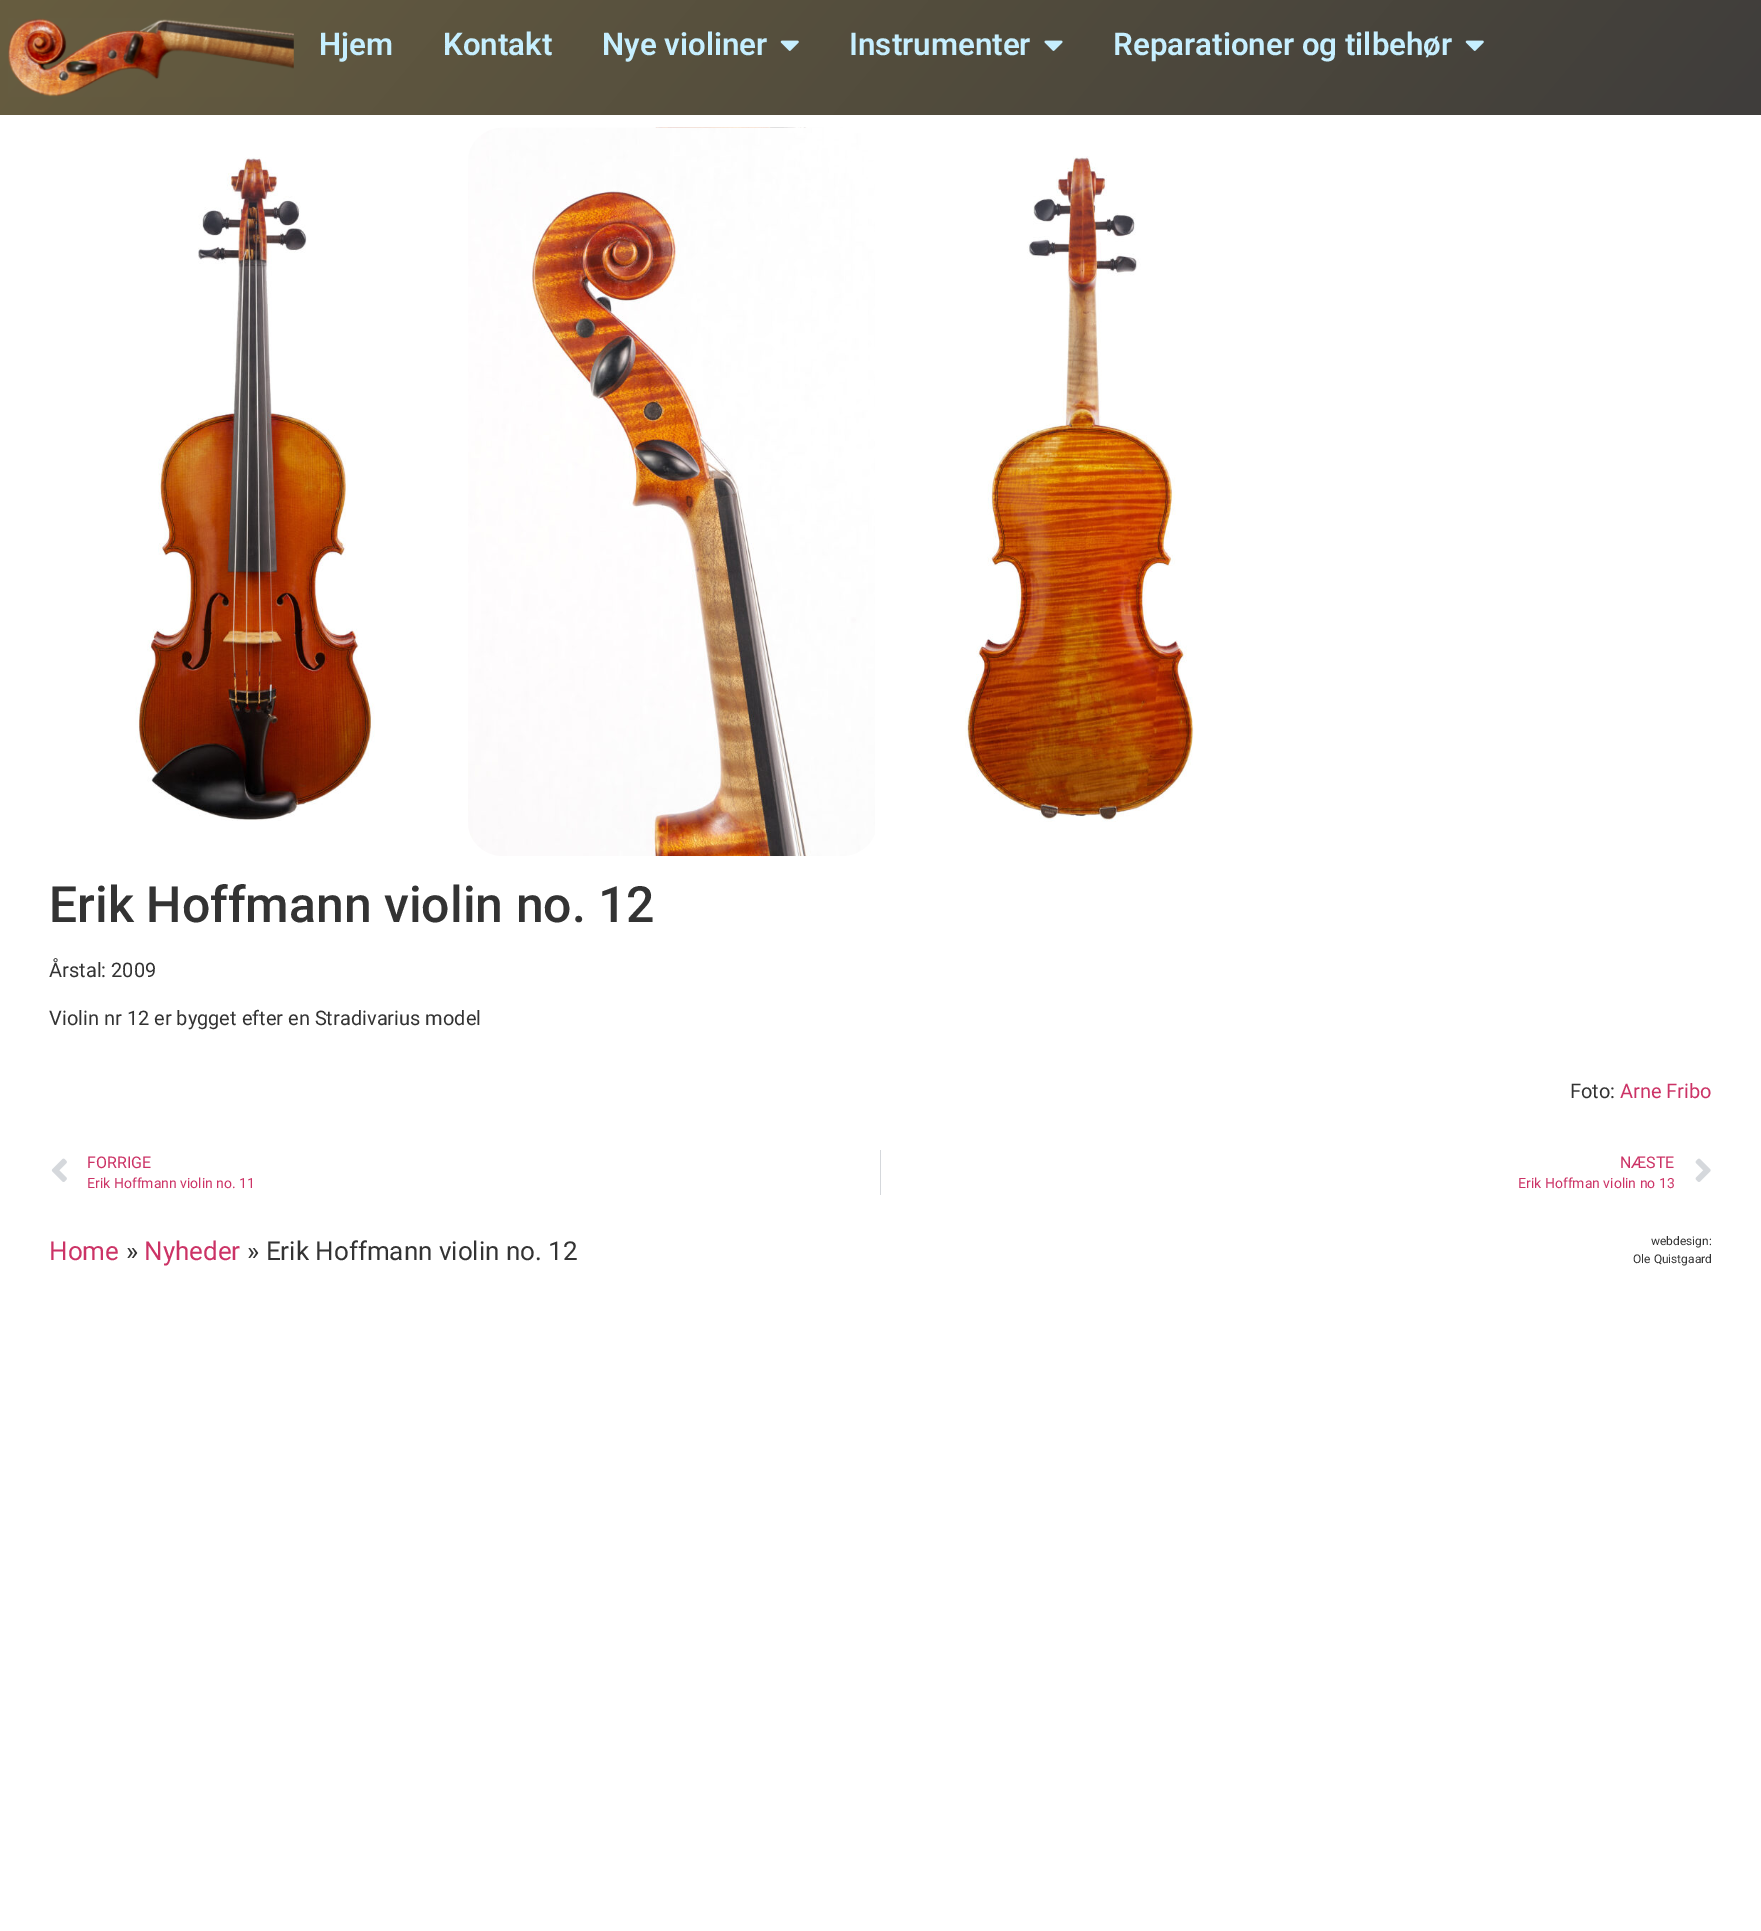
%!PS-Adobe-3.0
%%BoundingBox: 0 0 1761 1931
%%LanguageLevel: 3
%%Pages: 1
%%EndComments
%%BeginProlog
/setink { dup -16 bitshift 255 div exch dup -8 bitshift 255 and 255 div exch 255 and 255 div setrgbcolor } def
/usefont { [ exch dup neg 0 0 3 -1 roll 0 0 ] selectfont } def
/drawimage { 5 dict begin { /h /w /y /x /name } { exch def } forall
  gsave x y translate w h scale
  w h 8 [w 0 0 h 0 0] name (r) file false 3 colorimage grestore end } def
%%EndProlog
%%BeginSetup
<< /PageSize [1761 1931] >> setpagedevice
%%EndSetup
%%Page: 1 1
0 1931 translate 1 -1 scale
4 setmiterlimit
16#FFFFFF setink
0 0 1761 1931 rectfill
gsave 0 0 moveto 1761 0 lineto 1761 115 lineto 0 115 lineto closepath clip newpath
<< /ShadingType 2 /ColorSpace /DeviceRGB /Coords [1426 515 336 -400] /Extend [true true] /Function << /FunctionType 2 /Domain [0 1] /C0 [0.247 0.239 0.231] /C1 [0.404 0.365 0.251] /N 1 >> >> shfill grestore
(img1.raw) 8 18 286 79 drawimage
/Roboto-SemiBold 31.25 usefont
16#C6EFFF setink
[
    [(Hjem) 319 55]
    [(Kontakt) 443 55]
    [(Nye violiner) 602 55]
] { aload pop moveto show } forall
(img2.raw) 780 40 19 11 drawimage
849 55 moveto (Instrumenter) show
(img3.raw) 1044 40 19 11 drawimage
1113 55 moveto (Reparationer og tilbehør) show
(img4.raw) 1465 40 19 11 drawimage
(img5.raw) 135 157 240 664 drawimage
(img6.raw) 468 127 407 730 drawimage
(img7.raw) 965 156 229 666 drawimage
/Roboto-Medium 50 usefont
16#333333 setink
49 922 moveto (Erik Hoffmann violin no. 12) show
/Roboto-Regular 20 usefont
[
    [(Årstal: 2009) 49 977]
    [(Violin nr 12 er bygget efter en Stradivarius model) 49 1025]
    [(Foto:) 1570 1098]
] { aload pop moveto show } forall
16#CC3366 setink
1620 1098 moveto (Arne Fribo) show
(img8.raw) 51 1158 16 24 drawimage
/Roboto-Regular 16 usefont
87 1168 moveto (FORRIGE) show
/Roboto-Regular 14 usefont
87 1188 moveto (Erik Hoffmann violin no. 11) show
16#D5D8DC setink
880 1150 1 45 rectfill
/Roboto-Regular 16 usefont
16#CC3366 setink
1620 1168 moveto (NÆSTE) show
/Roboto-Regular 14 usefont
1518 1188 moveto (Erik Hoffman violin no 13) show
(img9.raw) 1695 1158 16 24 drawimage
/Roboto-Regular 26 usefont
49 1260 moveto (Home) show
16#333333 setink
126 1260 moveto (») show
16#CC3366 setink
144 1260 moveto (Nyheder) show
16#333333 setink
247 1260 moveto (» Erik Hoffmann violin no. 12) show
/Roboto-Regular 12 usefont
1651 1245 moveto (webdesign:) show
1633 1263 moveto (Ole Quistgaard) show
showpage
%%EOF
